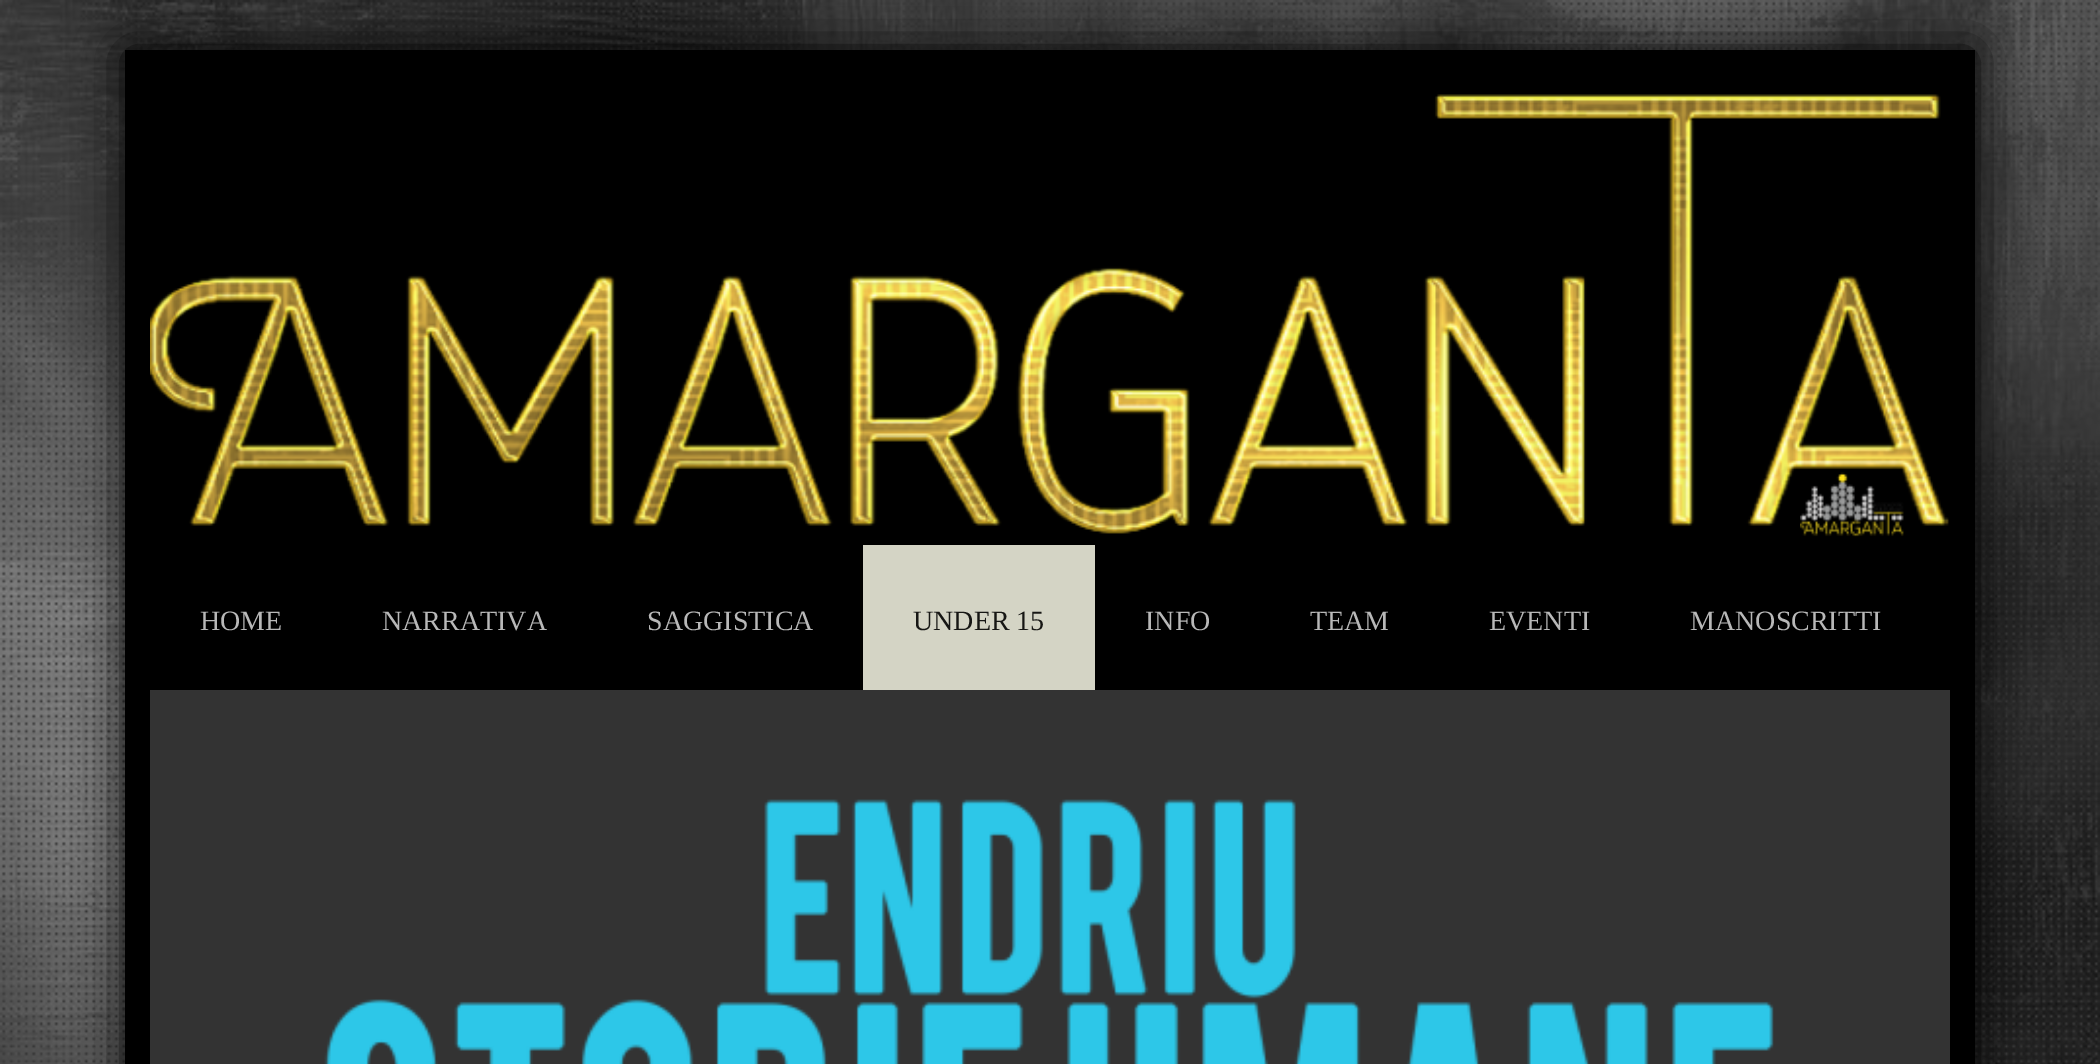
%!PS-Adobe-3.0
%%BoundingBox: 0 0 2100 1064
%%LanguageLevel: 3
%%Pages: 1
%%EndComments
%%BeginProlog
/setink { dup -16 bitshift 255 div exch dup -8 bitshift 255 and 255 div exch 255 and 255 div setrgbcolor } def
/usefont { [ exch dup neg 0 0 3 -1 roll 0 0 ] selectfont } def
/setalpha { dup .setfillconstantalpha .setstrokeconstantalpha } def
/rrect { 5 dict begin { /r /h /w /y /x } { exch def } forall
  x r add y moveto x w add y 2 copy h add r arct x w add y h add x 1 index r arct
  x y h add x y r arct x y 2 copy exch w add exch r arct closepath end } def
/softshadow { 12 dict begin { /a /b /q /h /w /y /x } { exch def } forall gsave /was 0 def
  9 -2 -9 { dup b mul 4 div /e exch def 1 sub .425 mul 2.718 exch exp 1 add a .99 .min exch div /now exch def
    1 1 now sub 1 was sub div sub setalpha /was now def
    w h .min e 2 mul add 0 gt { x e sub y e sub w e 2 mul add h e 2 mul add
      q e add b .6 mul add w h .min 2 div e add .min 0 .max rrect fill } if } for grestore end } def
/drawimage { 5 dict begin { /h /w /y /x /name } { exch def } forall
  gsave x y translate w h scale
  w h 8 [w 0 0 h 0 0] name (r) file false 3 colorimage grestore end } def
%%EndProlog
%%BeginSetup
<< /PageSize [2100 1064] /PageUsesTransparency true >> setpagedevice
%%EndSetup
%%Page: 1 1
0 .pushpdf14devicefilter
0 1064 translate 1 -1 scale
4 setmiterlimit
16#FFFFFF setink
0 0 2100 1064 rectfill
(img1.raw) 0 0 2100 1064 drawimage
16#000000 setink
125 50 1850 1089 0 25 1 softshadow
125 50 1850 1014 rectfill
(img2.raw) 150 75 1800 470 drawimage
(img3.raw) 1800 472 104 65 drawimage
/LiberationSerif-Regular 28 usefont
16#B8B8B8 setink
[
    [(HOME) 200 630]
    [(NARRATIVA) 382 630]
    [(SAGGISTICA) 647 630]
] { aload pop moveto show } forall
16#D4D4C5 setink
863 545 232 145 rectfill
16#161614 setink
913 630 moveto (UNDER 15) show
16#B8B8B8 setink
[
    [(INFO) 1145 630]
    [(TEAM) 1310 630]
    [(EVENTI) 1489 630]
    [(MANOSCRITTI) 1690 630]
] { aload pop moveto show } forall
16#333333 setink
150 690 1800 374 rectfill
(img4.raw) 324 799 1450 265 drawimage
.poppdf14devicefilter showpage
%%EOF
